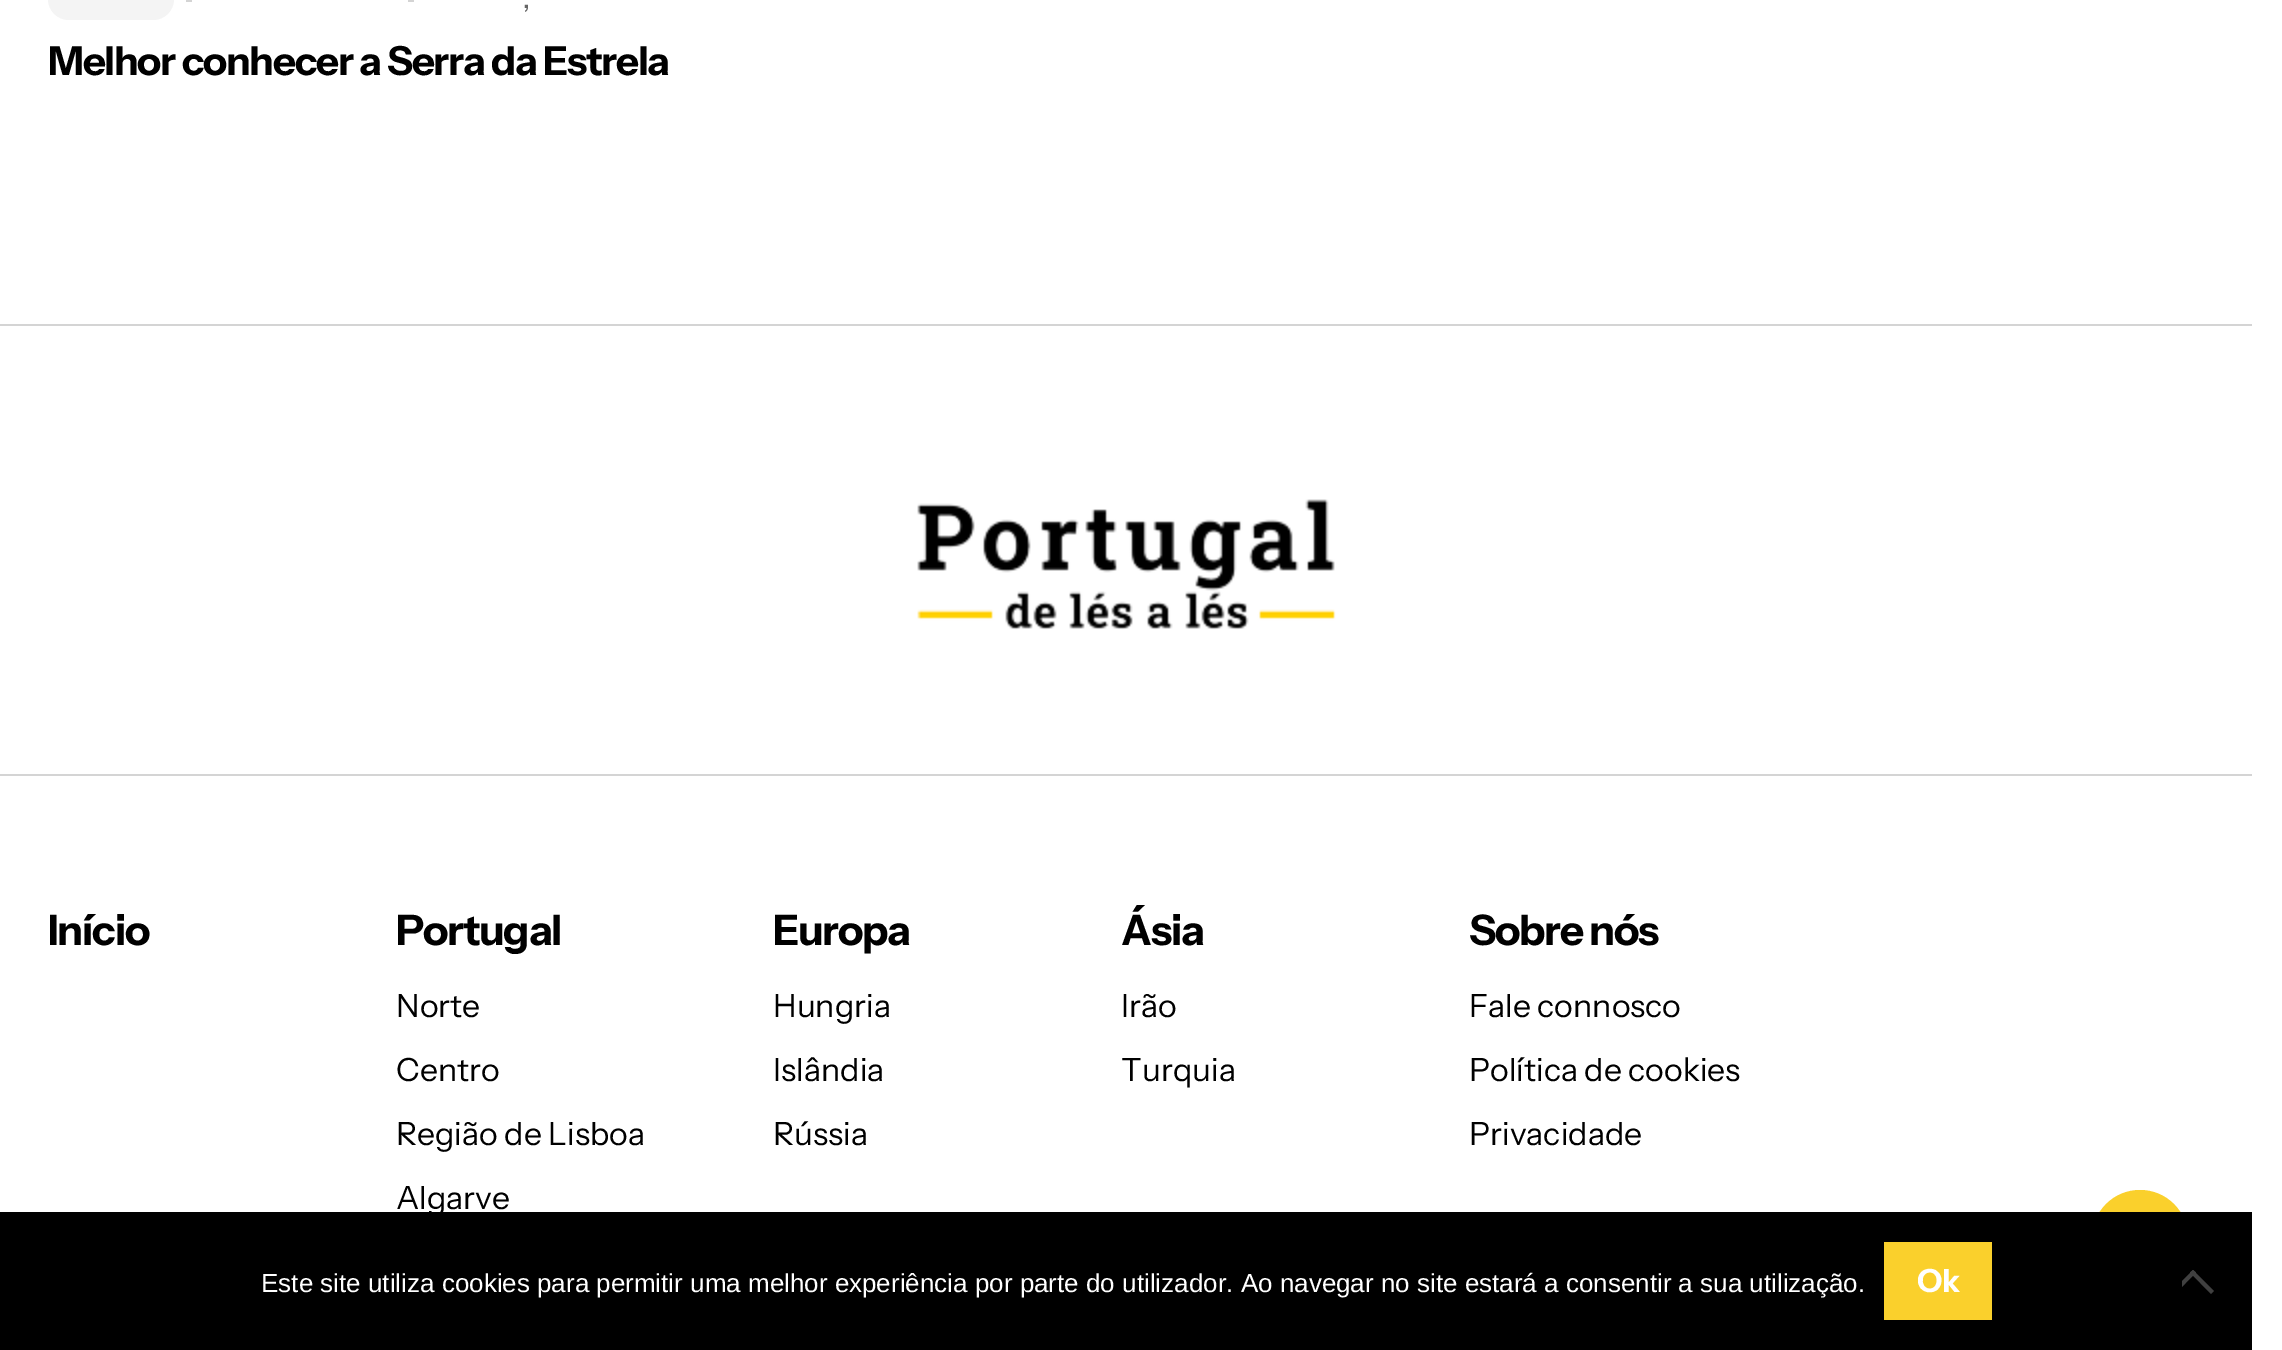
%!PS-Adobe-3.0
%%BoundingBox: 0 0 2282 1350
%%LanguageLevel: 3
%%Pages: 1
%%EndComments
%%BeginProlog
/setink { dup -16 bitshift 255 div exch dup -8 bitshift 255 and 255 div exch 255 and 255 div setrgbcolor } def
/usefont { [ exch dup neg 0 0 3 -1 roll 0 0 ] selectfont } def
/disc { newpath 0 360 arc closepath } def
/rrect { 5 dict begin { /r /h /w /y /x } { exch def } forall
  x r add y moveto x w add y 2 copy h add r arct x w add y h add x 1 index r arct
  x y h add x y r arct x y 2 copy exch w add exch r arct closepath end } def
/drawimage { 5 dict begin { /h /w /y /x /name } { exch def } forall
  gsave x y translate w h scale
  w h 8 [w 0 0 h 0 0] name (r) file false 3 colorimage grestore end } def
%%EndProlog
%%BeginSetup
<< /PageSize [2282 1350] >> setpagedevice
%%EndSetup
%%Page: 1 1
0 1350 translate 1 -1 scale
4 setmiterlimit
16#FFFFFF setink
0 0 2282 1350 rectfill
16#F4F4F4 setink
48 -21 126 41 21 rrect fill
16#D4D4D4 setink
186 0 6 2 rectfill
408 0 6 2 rectfill
/InstrumentSans-Medium 26 usefont
16#666666 setink
523 8 moveto -1 0 (,) ashow
/InstrumentSans-Bold 40 usefont
16#000000 setink
48 75 moveto -1.2 0 (Melhor conhecer a Serra da Estrela) ashow
16#D4D4D4 setink
0 324 2252 2 rectfill
(img1.raw) 917 499 419 131 drawimage
0 774 2252 2 rectfill
/InstrumentSans-Bold 42 usefont
16#000000 setink
48 945 moveto -1.25 0 (Início) ashow
396 945 moveto -1.25 0 (Portugal) ashow
/InstrumentSans-Regular 32 usefont
[
    [(Norte) 396 1017]
    [(Centro) 396 1081]
    [(Região de Lisboa) 396 1145]
    [(Algarve) 396 1209]
] { aload pop moveto show } forall
/InstrumentSans-Bold 42 usefont
773 945 moveto -1.25 0 (Europa) ashow
/InstrumentSans-Regular 32 usefont
[
    [(Hungria) 773 1017]
    [(Islândia) 773 1081]
    [(Rússia) 773 1145]
] { aload pop moveto show } forall
/InstrumentSans-Bold 42 usefont
1121 945 moveto -1.25 0 (Ásia) ashow
/InstrumentSans-Regular 32 usefont
1121 1017 moveto (Irão) show
1121 1081 moveto (Turquia) show
/InstrumentSans-Bold 42 usefont
1469 945 moveto -1.25 0 (Sobre nós) ashow
/InstrumentSans-Regular 32 usefont
[
    [(Fale connosco) 1469 1017]
    [(Política de cookies) 1469 1081]
    [(Privacidade) 1469 1145]
] { aload pop moveto show } forall
16#FAD02C setink
2140 1238 48 disc fill
16#000000 setink
0 1212 2252 138 rectfill
/LiberationSans-Regular 26 usefont
16#FFFFFF setink
261 1292 moveto (Este site utiliza cookies para permitir uma melhor experiência por parte do utilizador. Ao navegar no site estará a consentir a sua utilização.) show
16#FAD02C setink
1884 1242 108 78 rectfill
/InstrumentSans-Bold 32 usefont
16#FFFFFF setink
1917 1292 moveto -1 0 (Ok) ashow
gsave
2182 1260 40 40 rectclip
16#404040 setink
2193 1270 moveto 2196 1272.5 lineto 2175 1294 lineto 2172 1291 lineto closepath fill
grestore
16#404040 setink
2190 1272.5 moveto 2193 1270 lineto 2214 1291 lineto 2211 1294 lineto closepath fill
showpage
%%EOF
